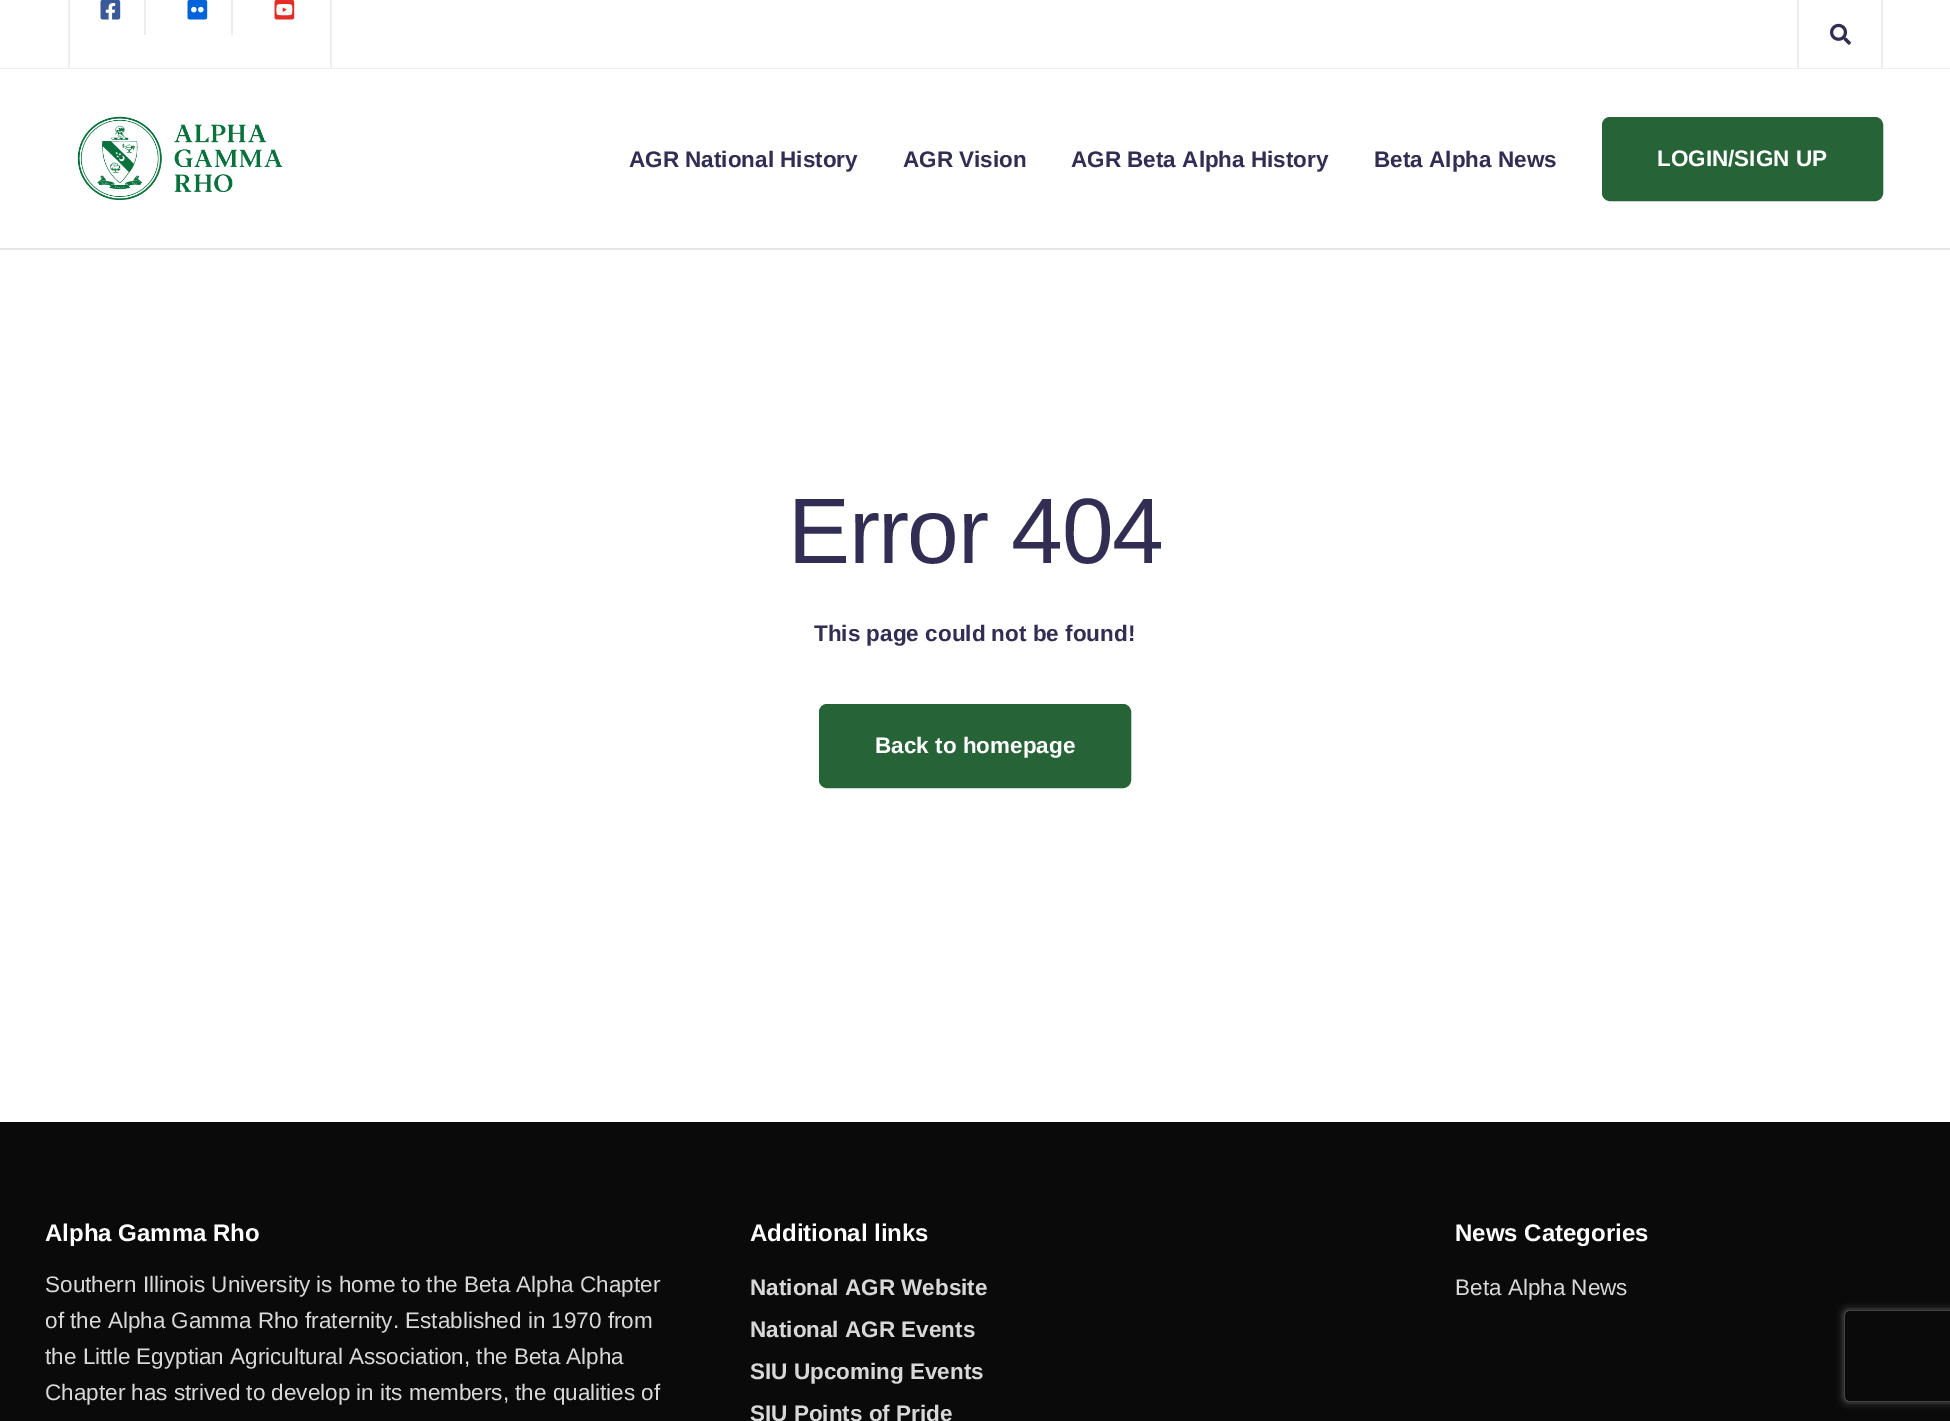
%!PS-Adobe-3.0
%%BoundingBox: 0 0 1950 1421
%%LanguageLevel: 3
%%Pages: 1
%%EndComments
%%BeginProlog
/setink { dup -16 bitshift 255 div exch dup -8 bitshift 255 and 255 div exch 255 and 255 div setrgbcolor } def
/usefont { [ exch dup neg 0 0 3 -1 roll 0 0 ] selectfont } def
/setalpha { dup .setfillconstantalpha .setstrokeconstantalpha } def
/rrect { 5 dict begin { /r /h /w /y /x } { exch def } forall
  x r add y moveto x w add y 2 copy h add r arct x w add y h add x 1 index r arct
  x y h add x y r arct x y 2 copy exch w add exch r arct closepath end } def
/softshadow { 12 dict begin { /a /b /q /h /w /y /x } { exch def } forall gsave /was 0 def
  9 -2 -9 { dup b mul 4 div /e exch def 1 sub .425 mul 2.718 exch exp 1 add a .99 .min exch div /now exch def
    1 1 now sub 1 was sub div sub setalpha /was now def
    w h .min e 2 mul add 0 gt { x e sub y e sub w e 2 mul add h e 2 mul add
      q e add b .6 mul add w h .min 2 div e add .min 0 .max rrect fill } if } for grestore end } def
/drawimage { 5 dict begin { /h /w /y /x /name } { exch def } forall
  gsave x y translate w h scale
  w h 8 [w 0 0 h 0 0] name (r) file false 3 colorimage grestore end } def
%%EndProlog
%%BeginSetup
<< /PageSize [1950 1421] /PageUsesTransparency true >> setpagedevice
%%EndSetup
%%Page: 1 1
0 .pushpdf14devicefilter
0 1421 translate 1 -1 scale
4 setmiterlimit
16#FFFFFF setink
0 0 1950 1421 rectfill
[
    [0 248 1950 2 16#E6E6E6]
    [0 68 1950 1 16#EDEDED]
    [330 0 2 68 16#EDEDED]
    [68 0 2 68 16#EDEDED]
    [144 0 2 35 16#EDEDED]
] { aload pop setink rectfill } forall
(img1.raw) 100 0 21 20 drawimage
231 0 2 35 rectfill
(img2.raw) 187 0 21 20 drawimage
(img3.raw) 274 0 21 20 drawimage
1881 0 2 68 rectfill
1797 0 2 68 rectfill
(img4.raw) 1830 23 21 22 drawimage
(img5.raw) 77 116 206 84 drawimage
/LiberationSans-Bold 22.5 usefont
16#322D53 setink
[
    [(AGR National History) 629 167]
    [(AGR Vision) 903 167]
    [(AGR Beta Alpha History) 1071 167]
    [(Beta Alpha News) 1374 167]
] { aload pop moveto show } forall
16#266337 setink
1603.5 118.5 278 81 6.5 rrect gsave fill grestore
3 setlinewidth
stroke
16#FFFFFF setink
1657 166 moveto (LOGIN/SIGN UP) show
/LiberationSans-Regular 93 usefont
16#322D53 setink
788 563 moveto -1.5 0 (Error 404) ashow
/LiberationSans-Bold 22.5 usefont
814 641 moveto (This page could not be found!) show
16#266337 setink
820.5 705.5 309 81 6.5 rrect gsave fill grestore
stroke
16#FFFFFF setink
875 753 moveto (Back to homepage) show
16#0A0A0A setink
0 1122 1950 299 rectfill
/LiberationSans-Bold 24 usefont
16#FFFFFF setink
45 1241 moveto (Alpha Gamma Rho) show
/LiberationSans-Regular 22.5 usefont
16#D8D8D8 setink
[
    [(Southern Illinois University is home to the Beta Alpha Chapter) 45 1292]
    [(of the Alpha Gamma Rho fraternity. Established in 1970 from) 45 1328]
    [(the Little Egyptian Agricultural Association, the Beta Alpha) 45 1364]
    [(Chapter has strived to develop in its members, the qualities of) 45 1400]
] { aload pop moveto show } forall
/LiberationSans-Bold 24 usefont
16#FFFFFF setink
750 1241 moveto (Additional links) show
/LiberationSans-Bold 22.5 usefont
16#D8D8D8 setink
[
    [(National AGR Website) 750 1295]
    [(National AGR Events) 750 1337]
    [(SIU Upcoming Events) 750 1379]
    [(SIU Points of Pride) 750 1421]
] { aload pop moveto show } forall
/LiberationSans-Bold 24 usefont
16#FFFFFF setink
1455 1241 moveto (News Categories) show
/LiberationSans-Regular 22.5 usefont
16#D8D8D8 setink
1455 1295 moveto (Beta Alpha News) show
gsave
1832 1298 moveto 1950 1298 lineto 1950 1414 lineto 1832 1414 lineto closepath 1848 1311 moveto 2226 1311 lineto 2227.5 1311 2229 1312.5 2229 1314 curveto 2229 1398 lineto 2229 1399.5 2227.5 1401 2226 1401 curveto 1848 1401 lineto 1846.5 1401 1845 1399.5 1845 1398 curveto 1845 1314 lineto 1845 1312.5 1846.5 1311 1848 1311 curveto closepath eoclip newpath
16#808080 setink
1845 1311 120 90 3 4 1 softshadow
grestore
.poppdf14devicefilter showpage
%%EOF
